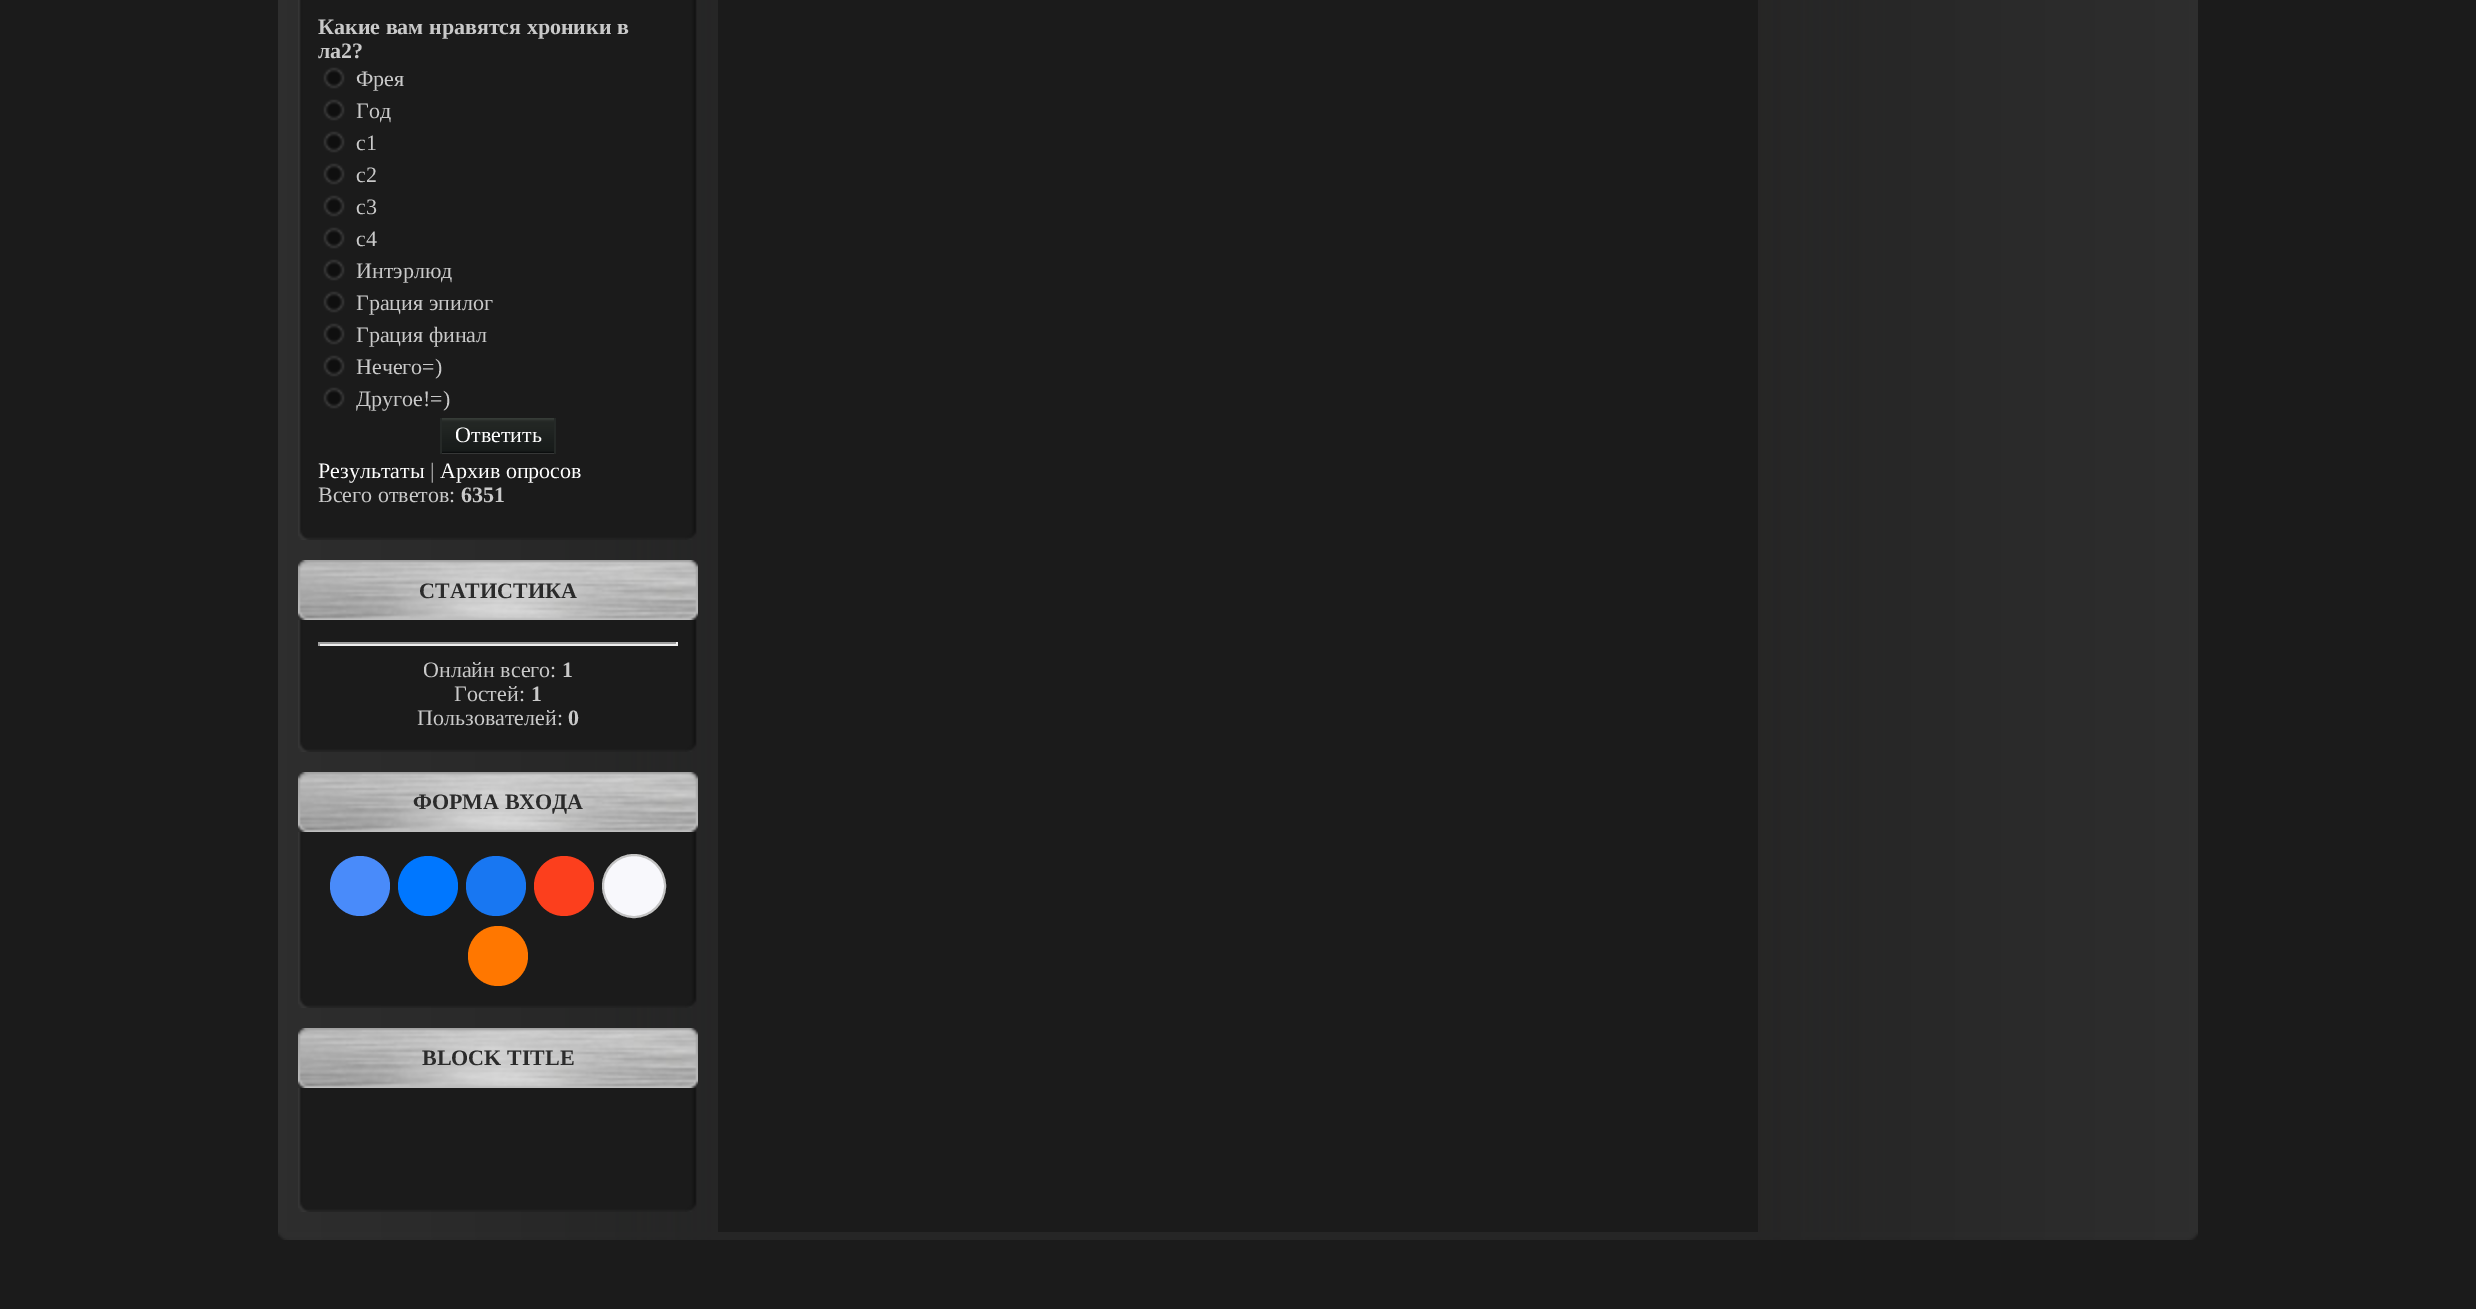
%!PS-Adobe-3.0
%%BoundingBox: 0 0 2476 1309
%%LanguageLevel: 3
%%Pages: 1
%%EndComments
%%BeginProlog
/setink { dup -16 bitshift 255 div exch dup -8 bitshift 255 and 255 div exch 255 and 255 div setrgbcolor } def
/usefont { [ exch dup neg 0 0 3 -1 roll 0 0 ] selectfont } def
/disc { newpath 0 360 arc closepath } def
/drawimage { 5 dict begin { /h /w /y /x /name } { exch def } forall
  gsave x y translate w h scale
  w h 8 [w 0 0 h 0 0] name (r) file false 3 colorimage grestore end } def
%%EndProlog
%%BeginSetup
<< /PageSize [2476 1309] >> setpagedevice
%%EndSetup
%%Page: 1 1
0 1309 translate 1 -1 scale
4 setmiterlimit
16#1B1B1B setink
0 0 2476 1309 rectfill
(img1.raw) 278 0 1920 1232 drawimage
(img2.raw) 298 0 399 530 drawimage
/LiberationSerif-Bold 22 usefont
16#C9C9C9 setink
318 34 moveto (Какие вам нравятся хроники в) show
318 58 moveto (ла2?) show
(img3.raw) 323 67 22 22 drawimage
/LiberationSerif-Regular 22 usefont
356 86 moveto (Фрея) show
(img3.raw) 323 99 22 22 drawimage
356 118 moveto (Год) show
(img3.raw) 323 131 22 22 drawimage
356 150 moveto (с1) show
(img3.raw) 323 163 22 22 drawimage
356 182 moveto (с2) show
(img3.raw) 323 195 22 22 drawimage
356 214 moveto (с3) show
(img3.raw) 323 227 22 22 drawimage
356 246 moveto (с4) show
(img3.raw) 323 259 22 22 drawimage
356 278 moveto (Интэрлюд) show
(img3.raw) 323 291 22 22 drawimage
356 310 moveto (Грация эпилог) show
(img3.raw) 323 323 22 22 drawimage
356 342 moveto (Грация финал) show
(img3.raw) 323 355 22 22 drawimage
356 374 moveto (Нечего=\)) show
(img3.raw) 323 387 22 22 drawimage
356 406 moveto (Другое!=\)) show
(img4.raw) 442 418 112 36 drawimage
16#252927 setink
554 418 2 36 rectfill
440 418 2 36 rectfill
16#FFFFFF setink
455 442 moveto (Ответить) show
318 478 moveto (Результаты) show
16#C9C9C9 setink
430 478 moveto (|) show
16#FFFFFF setink
440 478 moveto (Архив опросов) show
16#C9C9C9 setink
318 502 moveto (Всего ответов:) show
/LiberationSerif-Bold 22 usefont
461 502 moveto (6351) show
(img5.raw) 298 530 399 10 drawimage
(img6.raw) 298 560 400 60 drawimage
16#2B2B2B setink
419 598 moveto (СТАТИСТИКА) show
(img7.raw) 298 620 399 122 drawimage
[
    [318 642 360 2 16#9F9F9F]
    [676 642 2 4 16#EEEEEE]
    [318 644 360 2 16#EEEEEE]
    [318 642 2 4 16#9F9F9F]
] { aload pop setink rectfill } forall
/LiberationSerif-Regular 22 usefont
16#C9C9C9 setink
423 677 moveto (Онлайн всего:) show
/LiberationSerif-Bold 22 usefont
562 677 moveto (1) show
/LiberationSerif-Regular 22 usefont
454 701 moveto (Гостей:) show
/LiberationSerif-Bold 22 usefont
531 701 moveto (1) show
/LiberationSerif-Regular 22 usefont
417 725 moveto (Пользователей:) show
/LiberationSerif-Bold 22 usefont
568 725 moveto (0) show
(img5.raw) 298 742 399 10 drawimage
(img6.raw) 298 772 400 60 drawimage
16#2B2B2B setink
413 809 moveto (ФОРМА ВХОДА) show
(img8.raw) 298 832 399 166 drawimage
16#498BFA setink
360 886 30 disc fill
16#0077FF setink
428 886 30 disc fill
16#1877F2 setink
496 886 30 disc fill
16#FC3F1D setink
564 886 30 disc fill
16#F8F8FC setink
634 886 31 disc gsave fill grestore
16#C4C4C4 setink
2 setlinewidth
stroke
16#FF7700 setink
498 956 30 disc fill
(img5.raw) 298 998 399 10 drawimage
(img6.raw) 298 1028 400 60 drawimage
16#2B2B2B setink
422 1065 moveto (BLOCK TITLE) show
(img9.raw) 298 1088 399 114 drawimage
(img5.raw) 298 1202 399 10 drawimage
16#1B1B1B setink
718 0 1040 1232 rectfill
(img10.raw) 278 1232 1920 8 drawimage
showpage
%%EOF
